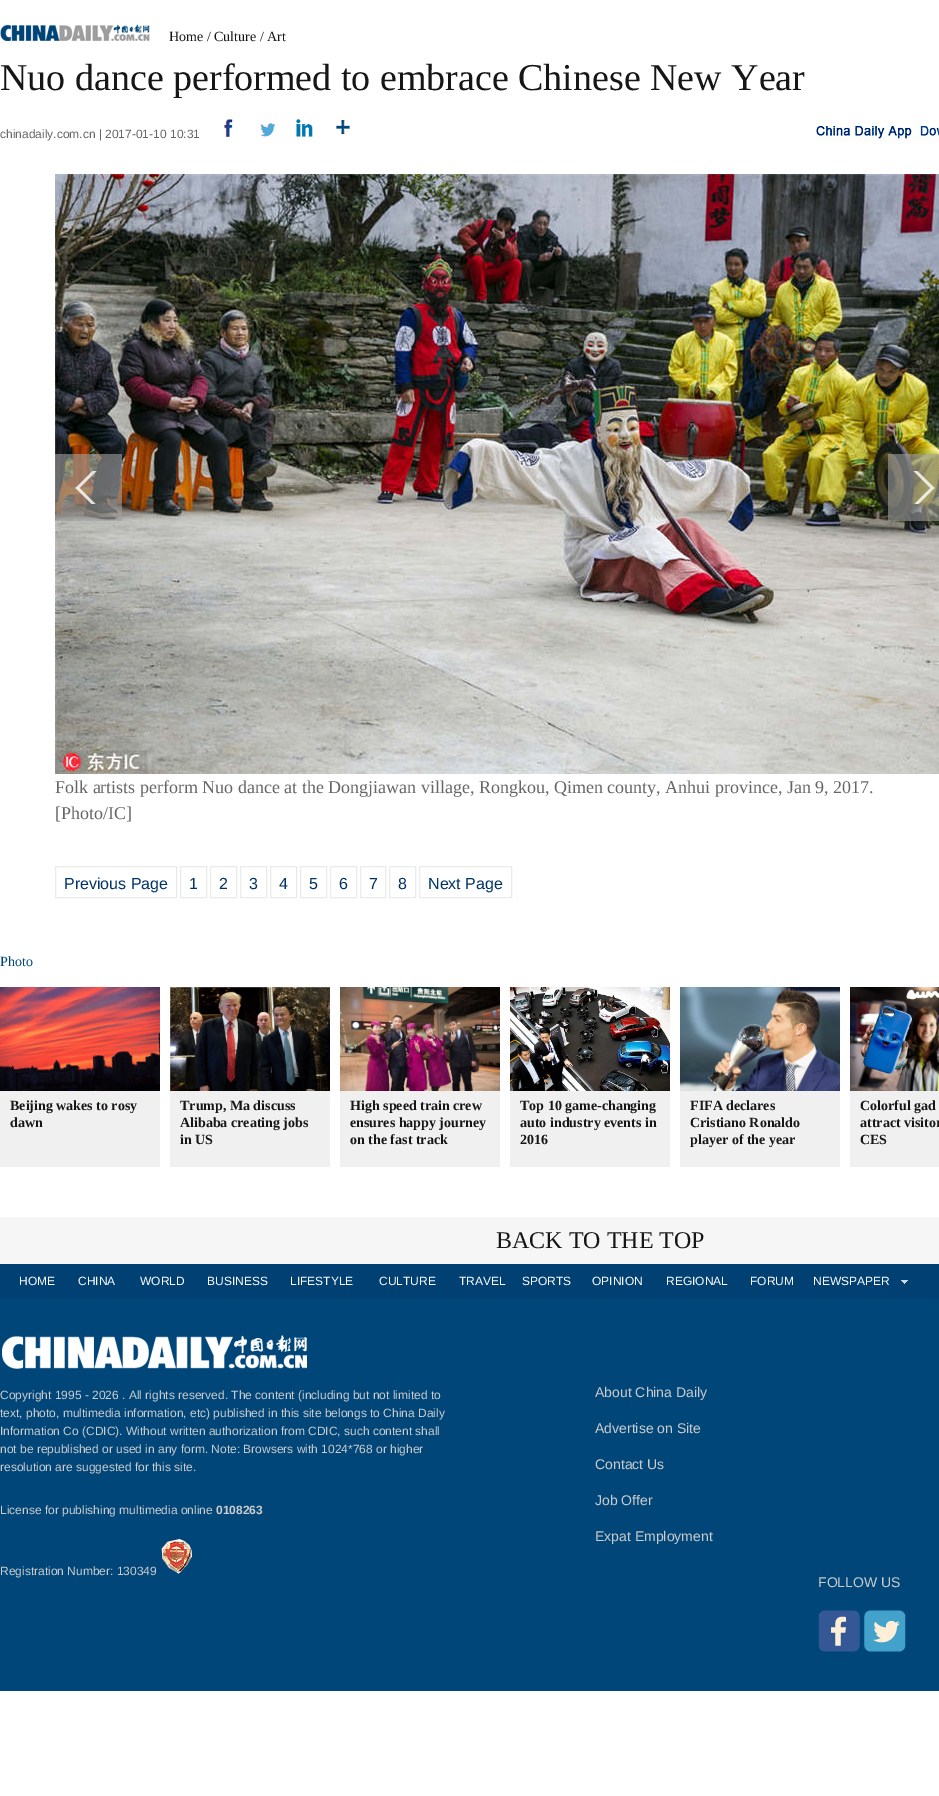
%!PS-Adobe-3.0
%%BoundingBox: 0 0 939 1796
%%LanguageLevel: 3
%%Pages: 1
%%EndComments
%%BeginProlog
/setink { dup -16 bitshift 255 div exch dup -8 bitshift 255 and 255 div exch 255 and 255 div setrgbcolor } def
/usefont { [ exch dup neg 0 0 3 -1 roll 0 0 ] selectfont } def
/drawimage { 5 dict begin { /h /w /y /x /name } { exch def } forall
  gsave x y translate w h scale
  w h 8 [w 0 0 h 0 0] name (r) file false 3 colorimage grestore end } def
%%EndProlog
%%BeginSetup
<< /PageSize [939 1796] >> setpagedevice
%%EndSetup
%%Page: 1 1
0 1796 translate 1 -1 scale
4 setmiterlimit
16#FFFFFF setink
0 0 939 1796 rectfill
(img1.raw) 0 24 150 17 drawimage
/LiberationSerif-Regular 14 usefont
16#161616 setink
169 41 moveto (Home / Culture / Art) show
/LiberationSerif-Regular 38 usefont
0 90 moveto (Nuo dance performed to embrace Chinese New Year) show
/LiberationSans-Regular 12 usefont
16#666666 setink
0 138 moveto (chinadaily.com.cn | 2017-01-10 10:31) show
(img2.raw) 223 119 10 18 drawimage
(img3.raw) 260 123 16 14 drawimage
(img4.raw) 296 119 17 18 drawimage
(img5.raw) 336 120 14 14 drawimage
(img6.raw) 816 119 123 23 drawimage
(img9.raw) 55 174 884 600 drawimage
(img7.raw) 55 454 67 67 drawimage
(img8.raw) 888 454 51 67 drawimage
/LiberationSerif-Regular 18 usefont
55 793 moveto (Folk artists perform Nuo dance at the Dongjiawan village, Rongkou, Qimen county, Anhui province, Jan 9, 2017.) show
55 819 moveto ([Photo/IC]) show
16#EBEBEB setink
55.5 866.5 121 31 rectstroke
/LiberationSans-Regular 16 usefont
16#003366 setink
64 889 moveto (Previous Page) show
16#EBEBEB setink
180.5 866.5 26 31 rectstroke
16#003366 setink
189 889 moveto (1) show
16#EBEBEB setink
210.5 866.5 26 31 rectstroke
16#003366 setink
219 889 moveto (2) show
16#EBEBEB setink
240.5 866.5 26 31 rectstroke
16#003366 setink
249 889 moveto (3) show
16#EBEBEB setink
270.5 866.5 26 31 rectstroke
16#003366 setink
279 889 moveto (4) show
16#EBEBEB setink
300.5 866.5 26 31 rectstroke
16#003366 setink
309 889 moveto (5) show
16#EBEBEB setink
330.5 866.5 26 31 rectstroke
16#003366 setink
339 889 moveto (6) show
16#EBEBEB setink
360.5 866.5 25 31 rectstroke
16#003366 setink
369 889 moveto (7) show
16#EBEBEB setink
389.5 866.5 26 31 rectstroke
16#003366 setink
398 889 moveto (8) show
16#EBEBEB setink
419.5 866.5 92 31 rectstroke
16#003366 setink
428 889 moveto (Next Page) show
/LiberationSerif-Regular 14 usefont
16#004679 setink
0 966 moveto (Photo) show
16#F0F0F0 setink
0 1091 160 76 rectfill
(img10.raw) 0 987 160 104 drawimage
/LiberationSerif-Bold 14 usefont
16#161616 setink
10 1110 moveto (Beijing wakes to rosy) show
10 1127 moveto (dawn) show
16#F0F0F0 setink
170 1091 160 76 rectfill
(img11.raw) 170 987 160 104 drawimage
16#161616 setink
[
    [(Trump, Ma discuss) 180 1110]
    [(Alibaba creating jobs) 180 1127]
    [(in US) 180 1144]
] { aload pop moveto show } forall
16#F0F0F0 setink
340 1091 160 76 rectfill
(img12.raw) 340 987 160 104 drawimage
16#161616 setink
[
    [(High speed train crew) 350 1110]
    [(ensures happy journey) 350 1127]
    [(on the fast track) 350 1144]
] { aload pop moveto show } forall
16#F0F0F0 setink
510 1091 160 76 rectfill
(img13.raw) 510 987 160 104 drawimage
16#161616 setink
[
    [(Top 10 game-changing) 520 1110]
    [(auto industry events in) 520 1127]
    [(2016) 520 1144]
] { aload pop moveto show } forall
16#F0F0F0 setink
680 1091 160 76 rectfill
(img14.raw) 680 987 160 104 drawimage
16#161616 setink
[
    [(FIFA declares) 690 1110]
    [(Cristiano Ronaldo) 690 1127]
    [(player of the year) 690 1144]
] { aload pop moveto show } forall
16#F0F0F0 setink
850 1091 89 76 rectfill
(img15.raw) 850 987 89 104 drawimage
16#161616 setink
[
    [(Colorful gad) 860 1110]
    [(attract visitor) 860 1127]
    [(CES) 860 1144]
] { aload pop moveto show } forall
16#F6F6F6 setink
0 1217 939 47 rectfill
/LiberationSerif-Regular 24 usefont
16#161616 setink
496 1248 moveto (BACK TO THE TOP) show
16#014073 setink
0 1264 939 35 rectfill
/LiberationSans-Regular 12 usefont
16#FFFFFF setink
[
    [(HOME) 19 1285]
    [(CHINA) 78 1285]
    [(WORLD) 140 1285]
    [(BUSINESS) 207 1285]
    [(LIFESTYLE) 290 1285]
    [(CULTURE) 379 1285]
    [(TRAVEL) 459 1285]
    [(SPORTS) 522 1285]
    [(OPINION) 592 1285]
    [(REGIONAL) 666 1285]
    [(FORUM) 750 1285]
] { aload pop moveto show } forall
(img16.raw) 901 1280 7 4 drawimage
813 1285 moveto (NEWSPAPER) show
16#004679 setink
0 1299 939 392 rectfill
(img17.raw) 2 1335 305 34 drawimage
16#CCCCCC setink
[
    [(Copyright 1995 - 2026 . All rights reserved. The content \(including but not limited to) 0 1399]
    [(text, photo, multimedia information, etc\) published in this site belongs to China Daily) 0 1417]
    [(Information Co \(CDIC\). Without written authorization from CDIC, such content shall) 0 1435]
    [(not be republished or used in any form. Note: Browsers with 1024*768 or higher) 0 1453]
    [(resolution are suggested for this site.) 0 1471]
    [(License for publishing multimedia online) 0 1514]
] { aload pop moveto show } forall
/LiberationSans-Bold 12 usefont
216 1514 moveto (0108263) show
/LiberationSans-Regular 12 usefont
0 1575 moveto (Registration Number: 130349) show
(img18.raw) 161 1538 31 37 drawimage
/LiberationSans-Regular 14 usefont
[
    [(About China Daily) 595 1397]
    [(Advertise on Site) 595 1433]
    [(Contact Us) 595 1469]
    [(Job Offer) 595 1505]
    [(Expat Employment) 595 1541]
    [(FOLLOW US) 818 1587]
] { aload pop moveto show } forall
(img19.raw) 818 1610 42 42 drawimage
(img20.raw) 864 1610 42 42 drawimage
showpage
%%EOF
